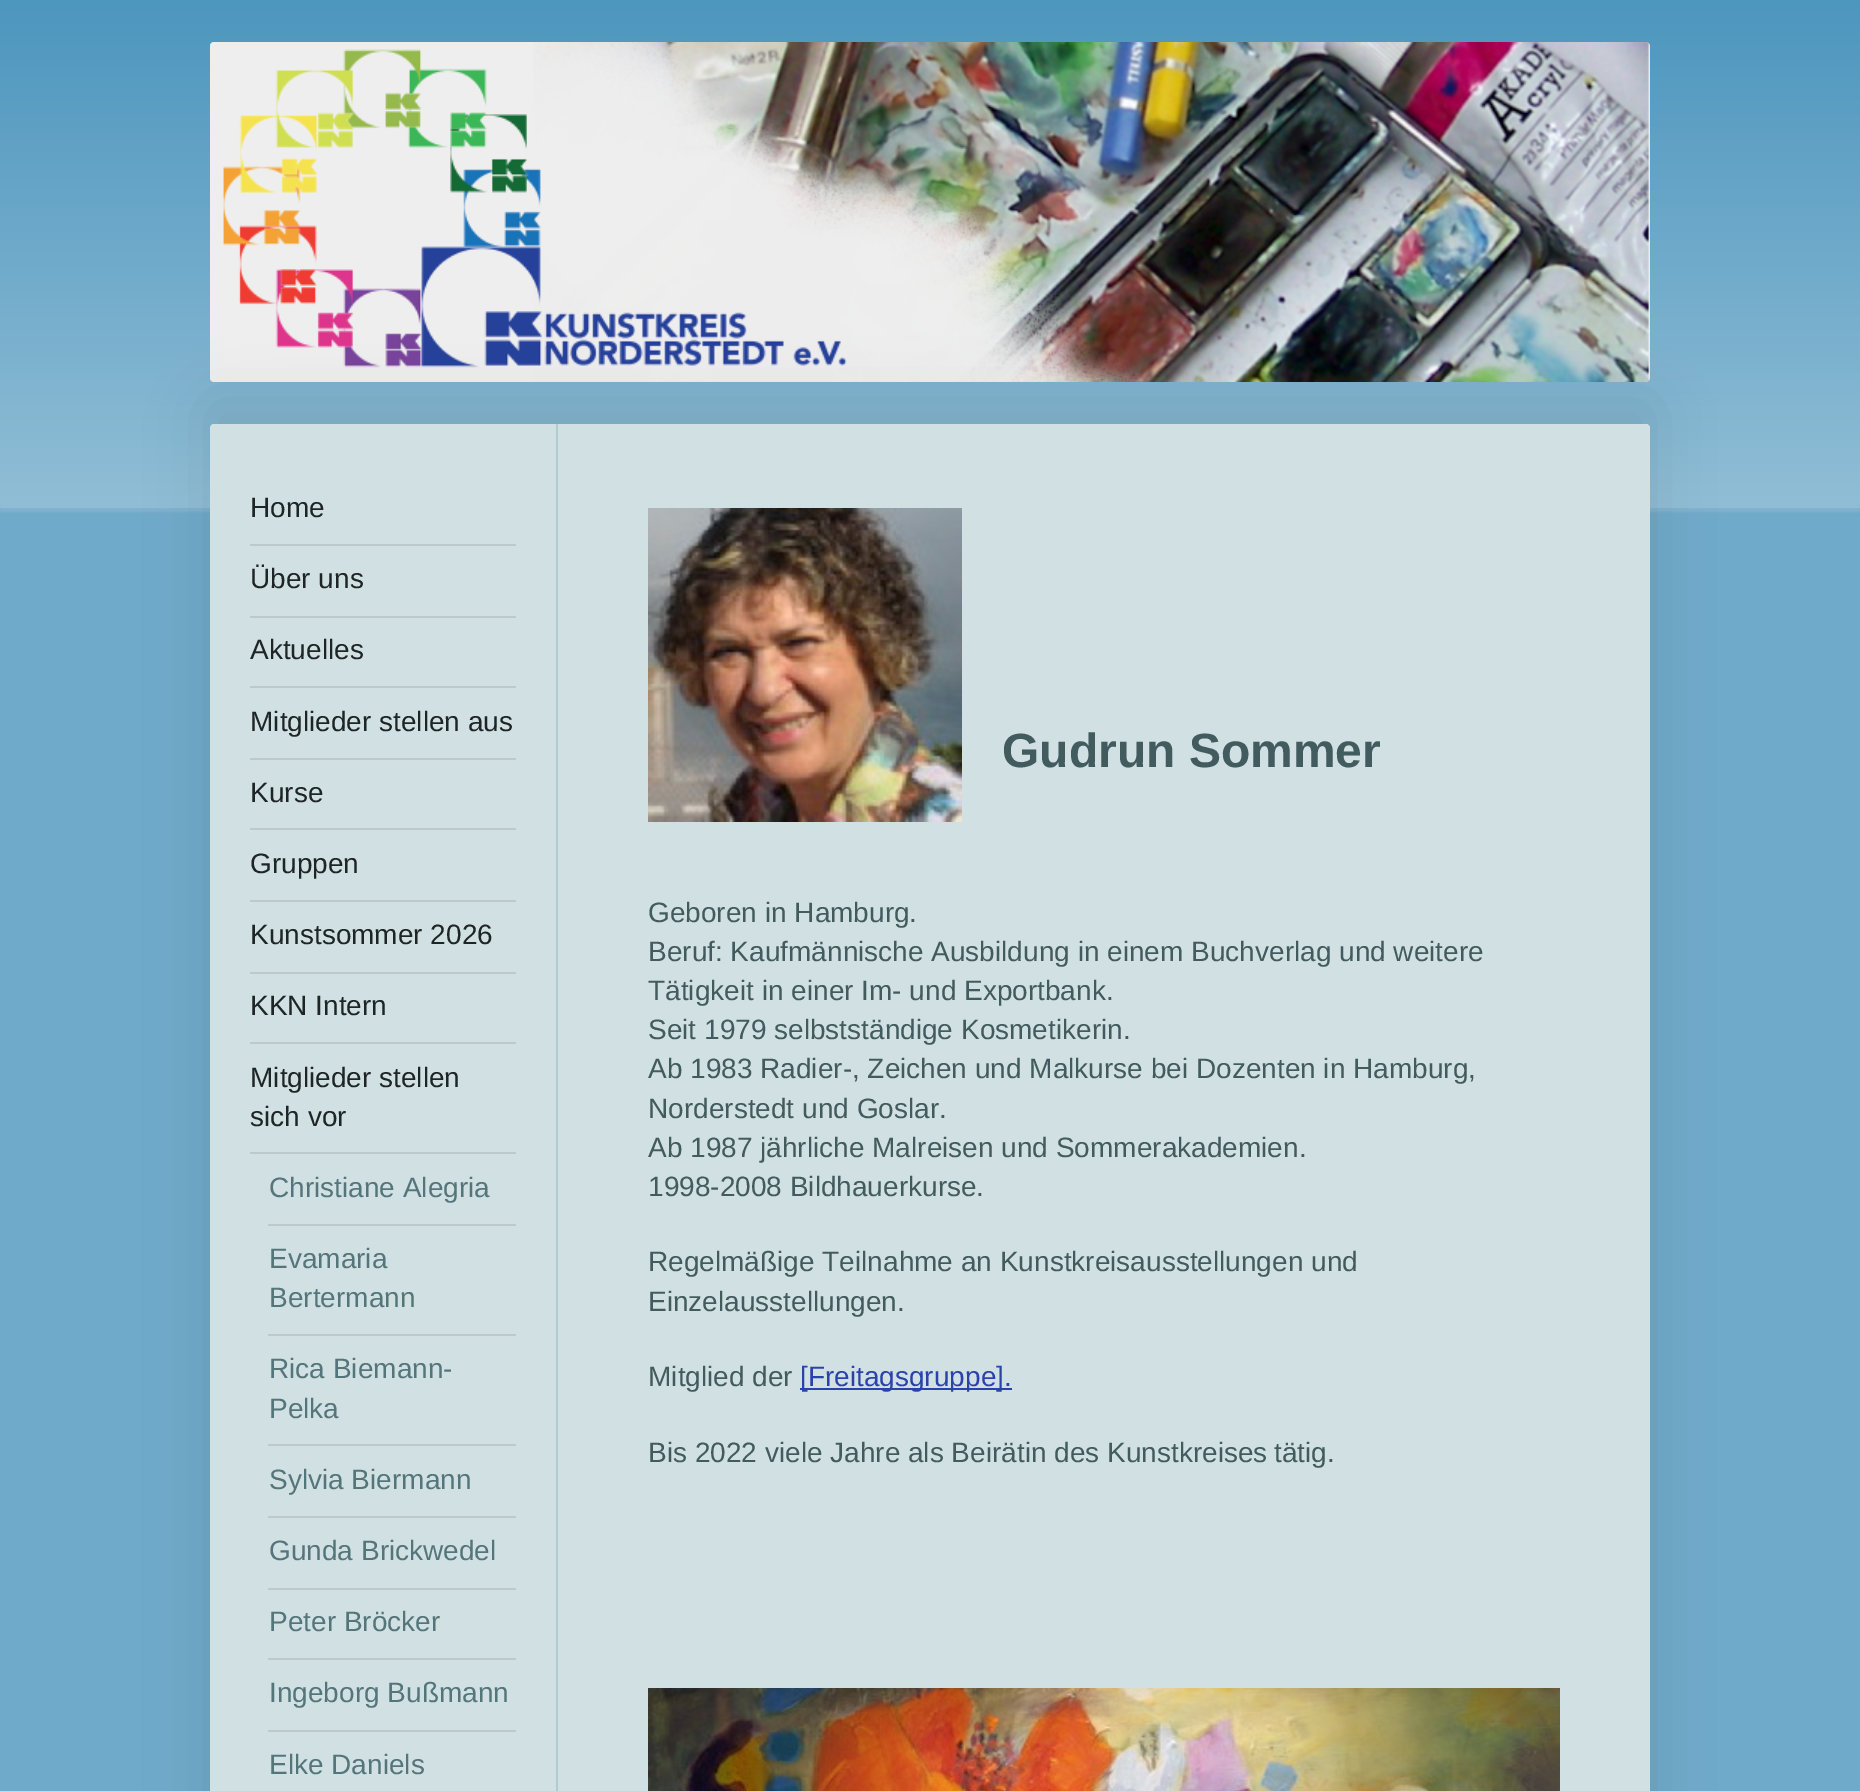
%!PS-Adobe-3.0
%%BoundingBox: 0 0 1860 1791
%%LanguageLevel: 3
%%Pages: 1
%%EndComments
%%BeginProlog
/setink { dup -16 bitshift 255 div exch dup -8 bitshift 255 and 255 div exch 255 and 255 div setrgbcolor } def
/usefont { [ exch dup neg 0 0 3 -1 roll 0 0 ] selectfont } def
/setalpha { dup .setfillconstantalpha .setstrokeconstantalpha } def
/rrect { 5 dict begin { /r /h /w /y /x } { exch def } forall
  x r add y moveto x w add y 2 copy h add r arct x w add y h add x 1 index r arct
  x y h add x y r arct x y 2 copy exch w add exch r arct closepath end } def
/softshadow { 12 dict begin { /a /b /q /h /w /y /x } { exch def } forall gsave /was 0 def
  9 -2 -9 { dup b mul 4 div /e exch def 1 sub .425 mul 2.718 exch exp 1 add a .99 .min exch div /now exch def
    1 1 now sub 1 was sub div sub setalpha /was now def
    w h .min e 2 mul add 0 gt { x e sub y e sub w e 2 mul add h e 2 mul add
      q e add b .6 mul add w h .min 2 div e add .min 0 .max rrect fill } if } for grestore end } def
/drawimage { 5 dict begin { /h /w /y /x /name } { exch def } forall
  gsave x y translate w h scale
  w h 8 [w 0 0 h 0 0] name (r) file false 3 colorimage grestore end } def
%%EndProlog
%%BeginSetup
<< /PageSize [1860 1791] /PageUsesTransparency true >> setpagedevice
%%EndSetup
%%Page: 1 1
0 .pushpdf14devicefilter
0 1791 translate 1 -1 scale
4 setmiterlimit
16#6FAACA setink
0 0 1860 1791 rectfill
16#FFFFFF setink
0 4 1860 508 0 1 0.1 softshadow
gsave 0 0 moveto 1860 0 lineto 1860 508 lineto 0 508 lineto closepath clip newpath
<< /ShadingType 2 /ColorSpace /DeviceRGB /Coords [0 508 0 0] /Extend [true true] /Function << /FunctionType 2 /Domain [0 1] /C0 [0.569 0.745 0.839] /C1 [0.302 0.588 0.745] /N 1 >> >> shfill grestore
16#EEEEEE setink
210 42 1440 340 4 rrect fill
(img1.raw) 533 42 1117 340 drawimage
16#000000 setink
210 404 1440 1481 4 30 0.1 softshadow
(img2.raw) 223 49 624 319 drawimage
16#D1E0E2 setink
210 424 1440 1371 4 rrect fill
16#BCCACB setink
250 544 266 2 rectfill
/LiberationSans-Regular 28 usefont
16#1E2526 setink
250 517 moveto (Home) show
16#BCCACB setink
250 616 266 2 rectfill
16#1E2526 setink
250 588 moveto (Über uns) show
16#BCCACB setink
250 686 266 2 rectfill
16#1E2526 setink
250 659 moveto (Aktuelles) show
16#BCCACB setink
250 758 266 2 rectfill
16#1E2526 setink
250 731 moveto (Mitglieder stellen aus) show
16#BCCACB setink
250 828 266 2 rectfill
16#1E2526 setink
250 802 moveto (Kurse) show
16#BCCACB setink
250 900 266 2 rectfill
16#1E2526 setink
250 873 moveto (Gruppen) show
16#BCCACB setink
250 972 266 2 rectfill
16#1E2526 setink
250 944 moveto (Kunstsommer 2026) show
16#BCCACB setink
250 1042 266 2 rectfill
16#1E2526 setink
250 1015 moveto (KKN Intern) show
16#BCCACB setink
250 1152 266 2 rectfill
16#1E2526 setink
250 1087 moveto (Mitglieder stellen) show
250 1126 moveto (sich vor) show
16#BCCACB setink
268 1224 248 2 rectfill
16#54757A setink
269 1197 moveto (Christiane Alegria) show
16#BCCACB setink
268 1334 248 2 rectfill
16#54757A setink
269 1268 moveto (Evamaria) show
269 1307 moveto (Bertermann) show
16#BCCACB setink
268 1444 248 2 rectfill
16#54757A setink
269 1378 moveto (Rica Biemann-) show
269 1418 moveto (Pelka) show
16#BCCACB setink
268 1516 248 2 rectfill
16#54757A setink
269 1489 moveto (Sylvia Biermann) show
16#BCCACB setink
268 1588 248 2 rectfill
16#54757A setink
269 1560 moveto (Gunda Brickwedel) show
16#BCCACB setink
268 1658 248 2 rectfill
16#54757A setink
269 1631 moveto (Peter Bröcker) show
16#BCCACB setink
268 1730 248 2 rectfill
16#54757A setink
269 1702 moveto (Ingeborg Bußmann) show
269 1774 moveto (Elke Daniels) show
16#B2CBCE setink
556 424 2 1367 rectfill
(img3.raw) 648 508 314 314 drawimage
/LiberationSans-Bold 48 usefont
16#425B5E setink
1002 767 moveto (Gudrun Sommer) show
/LiberationSans-Regular 28 usefont
[
    [(Geboren in Hamburg.) 648 922]
    [(Beruf: Kaufmännische Ausbildung in einem Buchverlag und weitere) 648 961]
    [(Tätigkeit in einer Im- und Exportbank.) 648 1000]
    [(Seit 1979 selbstständige Kosmetikerin.) 648 1039]
    [(Ab 1983 Radier-, Zeichen und Malkurse bei Dozenten in Hamburg,) 648 1078]
    [(Norderstedt und Goslar.) 648 1118]
    [(Ab 1987 jährliche Malreisen und Sommerakademien.) 648 1157]
    [(1998-2008 Bildhauerkurse.) 648 1196]
    [(Regelmäßige Teilnahme an Kunstkreisausstellungen und) 648 1271]
    [(Einzelausstellungen.) 648 1311]
    [(Mitglied der) 648 1386]
] { aload pop moveto show } forall
16#2A43AB setink
800 1388 212 2 rectfill
800 1386 moveto ([Freitagsgruppe].) show
16#425B5E setink
648 1462 moveto (Bis 2022 viele Jahre als Beirätin des Kunstkreises) show
1274 1462 moveto (tätig.) show
(img4.raw) 648 1688 912 103 drawimage
.poppdf14devicefilter showpage
%%EOF
